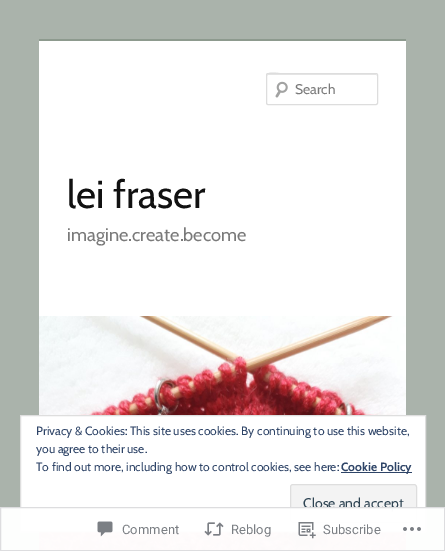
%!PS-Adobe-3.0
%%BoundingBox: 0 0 445 551
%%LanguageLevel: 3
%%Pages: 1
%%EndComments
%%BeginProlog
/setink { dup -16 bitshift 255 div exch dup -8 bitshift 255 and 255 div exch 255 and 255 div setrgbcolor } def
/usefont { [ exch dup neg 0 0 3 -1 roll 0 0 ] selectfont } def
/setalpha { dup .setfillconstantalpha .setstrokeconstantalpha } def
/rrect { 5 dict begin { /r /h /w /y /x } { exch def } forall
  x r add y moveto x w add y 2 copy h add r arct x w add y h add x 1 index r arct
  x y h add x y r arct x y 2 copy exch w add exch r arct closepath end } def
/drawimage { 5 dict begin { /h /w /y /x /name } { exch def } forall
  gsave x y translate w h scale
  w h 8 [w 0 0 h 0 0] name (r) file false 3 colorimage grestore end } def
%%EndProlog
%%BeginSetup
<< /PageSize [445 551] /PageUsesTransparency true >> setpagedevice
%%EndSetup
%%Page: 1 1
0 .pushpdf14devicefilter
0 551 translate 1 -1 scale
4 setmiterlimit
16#AAB3AB setink
0 0 445 551 rectfill
16#FFFFFF setink
39 41 367 275 rectfill
16#8D9A8E setink
39 39 367 2 rectfill
(img1.raw) 275 81 13 17 drawimage
16#E6E6E6 setink
268 75 moveto 377 75 lineto 377 76 lineto 376 74 lineto 286 74 lineto 282 74 267 69 267 76 curveto 267 75 267 75 268 75 curveto closepath fill
16#DDDDDD setink
266.5 73.5 111 31 1.5 rrect stroke
/Cabin-Regular 14 usefont
16#7A7A7A setink
295 94 moveto (Search) show
/Cabin-Regular 39 usefont
16#111111 setink
67 208 moveto (lei fraser) show
/Cabin-Regular 18.25 usefont
16#7A7A7A setink
67 241 moveto (imagine.create.become) show
(img2.raw) 39 316 367 235 drawimage
16#FFFFFF setink
20.5 415.5 moveto 425.5 415.5 lineto 425.5 531.5 lineto 20.5 531.5 lineto closepath gsave fill grestore
16#DEDEDE setink
stroke
/Cabin-Regular 12 usefont
16#2E4467 setink
[
    [(Privacy & Cookies: This site uses cookies. By continuing to use this website,) 36 435]
    [(you agree to their use.) 36 453]
    [(To find out more, including how to control cookies, see here:) 36 471]
] { aload pop moveto show } forall
341 472 71 1 rectfill
/Cabin-Bold 12 usefont
341 471 moveto (Cookie Policy) show
16#F3F3F3 setink
290.5 484.5 126 38 2.5 rrect gsave fill grestore
16#DEDEDE setink
stroke
/Cabin-Regular 14 usefont
16#2E4453 setink
303 508 moveto (Close and accept) show
0.98 setalpha
16#FFFFFF setink
0 507 445 44 rectfill
16#DCDCDE setink
0.5 507.5 444 43 rectstroke
1 setalpha
(img3.raw) 97 521 16 16 drawimage
/Roboto-Regular 13 usefont
16#7B7F84 setink
122 534 moveto (Comment) show
(img4.raw) 204 522 20 14 drawimage
231 534 moveto (Reblog) show
(img5.raw) 298 522 18 17 drawimage
323 534 moveto (Subscribe) show
(img6.raw) 403 527 18 4 drawimage
.poppdf14devicefilter showpage
%%EOF
